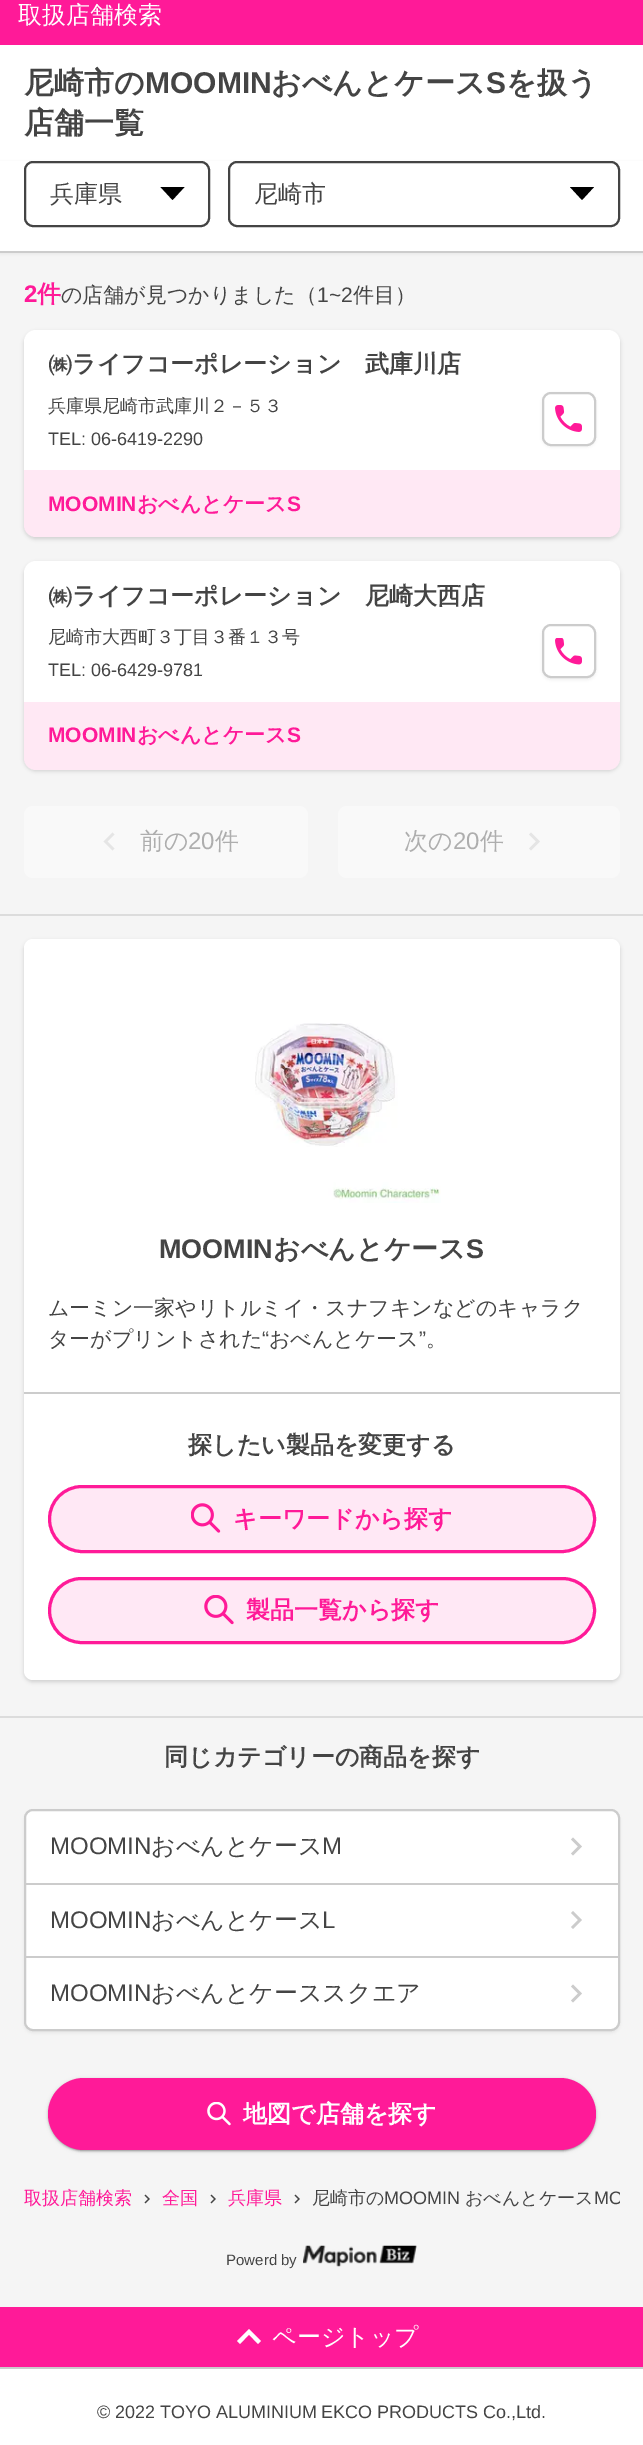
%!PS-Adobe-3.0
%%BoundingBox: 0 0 643 2445
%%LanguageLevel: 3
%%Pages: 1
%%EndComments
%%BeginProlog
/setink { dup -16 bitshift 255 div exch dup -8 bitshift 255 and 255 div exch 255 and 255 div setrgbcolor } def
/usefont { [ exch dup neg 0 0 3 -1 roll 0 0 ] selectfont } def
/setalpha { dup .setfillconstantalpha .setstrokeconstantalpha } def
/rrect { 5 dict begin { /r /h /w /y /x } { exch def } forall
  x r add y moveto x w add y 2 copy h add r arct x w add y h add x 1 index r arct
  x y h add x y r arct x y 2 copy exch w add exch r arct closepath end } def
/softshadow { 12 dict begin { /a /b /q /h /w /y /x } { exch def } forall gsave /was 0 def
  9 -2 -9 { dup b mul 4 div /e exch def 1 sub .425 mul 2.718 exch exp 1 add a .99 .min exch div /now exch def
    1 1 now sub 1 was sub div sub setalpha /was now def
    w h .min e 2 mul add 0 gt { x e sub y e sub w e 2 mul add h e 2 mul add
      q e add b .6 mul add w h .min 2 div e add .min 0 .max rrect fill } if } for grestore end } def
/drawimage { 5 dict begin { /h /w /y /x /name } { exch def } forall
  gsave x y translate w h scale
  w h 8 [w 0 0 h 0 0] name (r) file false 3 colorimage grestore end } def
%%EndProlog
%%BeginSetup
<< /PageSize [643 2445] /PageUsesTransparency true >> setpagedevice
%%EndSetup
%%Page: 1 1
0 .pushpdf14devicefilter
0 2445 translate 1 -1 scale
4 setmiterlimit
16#FFFFFF setink
0 0 643 2445 rectfill
16#FF1A98 setink
0 0 643 45 rectfill
/WenQuanYiZenHei-Medium 24 usefont
16#FFFFFF setink
18 23 moveto (取扱店舗検索) show
/WenQuanYiZenHei-Bold 30 usefont
16#444444 setink
24 93 moveto (尼崎市の) show
/LiberationSans-Bold 30 usefont
145 93 moveto (MOOMIN) show
/WenQuanYiZenHei-Bold 30 usefont
271 93 moveto (おべんとケース) show
/LiberationSans-Bold 30 usefont
486 93 moveto (S) show
/WenQuanYiZenHei-Bold 30 usefont
506 93 moveto (を扱う) show
24 133 moveto (店舗一覧) show
16#F5F5F5 setink
0 253 643 2054 rectfill
16#000000 setink
0 162 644 92 0 1.5 0.05 softshadow
16#FFFFFF setink
0 161 643 90 rectfill
16#CCCCCC setink
0 251 643 2 rectfill
16#444444 setink
2 setlinewidth
25 162 184 64 8 rrect stroke
/WenQuanYiZenHei-Medium 24 usefont
50 202 moveto (兵庫県) show
16#000000 setink
172.5 200 moveto 160.5 187 lineto 184.5 187 lineto closepath fill
16#444444 setink
229 162 390 64 8 rrect stroke
254 202 moveto (尼崎市) show
16#000000 setink
582 200 moveto 570 187 lineto 594 187 lineto closepath fill
/LiberationSans-Bold 24 usefont
16#FF1A98 setink
24 302 moveto (2) show
/WenQuanYiZenHei-Bold 24 usefont
37 302 moveto (件) show
/WenQuanYiZenHei-Medium 21 usefont
16#444444 setink
61 302 moveto (の店舗が見つかりました（) show
/LiberationSans-Regular 21 usefont
317 302 moveto (1~2) show
/WenQuanYiZenHei-Medium 21 usefont
353 302 moveto (件目）) show
16#000000 setink
24 332 596 207 12 2 0.15 softshadow
16#FFFFFF setink
24 330 596 207 12 rrect fill
/WenQuanYiZenHei-Bold 24 usefont
16#444444 setink
48 372 moveto (㈱ライフコーポレーション　武庫川店) show
/WenQuanYiZenHei-Medium 18 usefont
48 412 moveto (兵庫県尼崎市武庫川２－５３) show
/LiberationSans-Regular 18 usefont
48 445 moveto (TEL: 06-6419-2290) show
16#000000 setink
542 393 54 54 9 1.5 0.05 softshadow
16#FFFFFF setink
543 393 52 52 8 rrect gsave fill grestore
16#CCCCCC setink
stroke
(img1.raw) 555 405 27 27 drawimage
0.1 setalpha
16#FF1A98 setink
24 470 moveto 620 470 lineto 620 525 lineto 620 531.5 614.5 537 608 537 curveto 36 537 lineto 29.5 537 24 531.5 24 525 curveto closepath fill
/LiberationSans-Bold 21 usefont
1 setalpha
48 511 moveto (MOOMIN) show
/WenQuanYiZenHei-Bold 21 usefont
137 511 moveto (おべんとケース) show
/LiberationSans-Bold 21 usefont
287 511 moveto (S) show
16#000000 setink
24 563 596 208 12 2 0.15 softshadow
16#FFFFFF setink
24 561 596 209 12 rrect fill
/WenQuanYiZenHei-Bold 24 usefont
16#444444 setink
48 604 moveto (㈱ライフコーポレーション　尼崎大西店) show
/WenQuanYiZenHei-Medium 18 usefont
48 643 moveto (尼崎市大西町３丁目３番１３号) show
/LiberationSans-Regular 18 usefont
48 676 moveto (TEL: 06-6429-9781) show
16#000000 setink
542 626 54 54 9 1.5 0.05 softshadow
16#FFFFFF setink
543 625 52 52 8 rrect gsave fill grestore
16#CCCCCC setink
stroke
(img2.raw) 555 638 27 27 drawimage
0.1 setalpha
16#FF1A98 setink
24 702 moveto 620 702 lineto 620 758 lineto 620 764.5 614.5 770 608 770 curveto 36 770 lineto 29.5 770 24 764.5 24 758 curveto closepath fill
/LiberationSans-Bold 21 usefont
1 setalpha
48 742 moveto (MOOMIN) show
/WenQuanYiZenHei-Bold 21 usefont
137 742 moveto (おべんとケース) show
/LiberationSans-Bold 21 usefont
287 742 moveto (S) show
16#F9F9F9 setink
24 806 284 72 9 rrect fill
16#E5E5E5 setink
114.5 834.5 moveto 112.5 832.5 lineto 103.5 841.5 lineto 112.5 850.5 lineto 114.5 848.5 lineto 107.5 841.5 lineto closepath fill
/WenQuanYiZenHei-Medium 24 usefont
16#AEAEAE setink
140 849 moveto (前の) show
/LiberationSans-Regular 24 usefont
188 849 moveto (20) show
/WenQuanYiZenHei-Medium 24 usefont
215 849 moveto (件) show
16#F9F9F9 setink
338 806 282 72 9 rrect fill
16#AEAEAE setink
404 849 moveto (次の) show
/LiberationSans-Regular 24 usefont
453 849 moveto (20) show
/WenQuanYiZenHei-Medium 24 usefont
480 849 moveto (件) show
16#E5E5E5 setink
531 832.5 moveto 529 834.5 lineto 536 841.5 lineto 529 848.5 lineto 531 850.5 lineto 540 841.5 lineto closepath fill
16#DCDCDC setink
0 914 643 2 rectfill
16#000000 setink
24 941 596 741 9 2 0.15 softshadow
16#FFFFFF setink
24 939 596 741 9 rrect fill
(img3.raw) 255 1023 186 180 drawimage
/LiberationSans-Bold 27 usefont
16#444444 setink
159 1258 moveto (MOOMIN) show
/WenQuanYiZenHei-Bold 27 usefont
273 1258 moveto (おべんとケース) show
/LiberationSans-Bold 27 usefont
466 1258 moveto (S) show
/WenQuanYiZenHei-Medium 21 usefont
48 1315 moveto (ムーミン一家やリトルミイ・スナフキンなどのキャラク) show
48 1346 moveto (ターがプリントされた) show
/LiberationSans-Regular 21 usefont
262 1346 moveto (“) show
/WenQuanYiZenHei-Medium 21 usefont
269 1346 moveto (おべんとケース) show
/LiberationSans-Regular 21 usefont
419 1346 moveto (”) show
/WenQuanYiZenHei-Medium 21 usefont
426 1346 moveto (。) show
16#CCCCCC setink
24 1392 596 2 rectfill
/WenQuanYiZenHei-Bold 24 usefont
16#444444 setink
188 1453 moveto (探したい製品を変更する) show
16#FFE8F5 setink
49.5 1486.5 545 65 32.5 rrect gsave fill grestore
16#FF1A98 setink
3 setlinewidth
stroke
(img4.raw) 191 1503 30 30 drawimage
233 1527 moveto (キーワードから探す) show
16#FFE8F5 setink
49.5 1578.5 545 64 32 rrect gsave fill grestore
16#FF1A98 setink
stroke
(img5.raw) 204 1595 30 30 drawimage
246 1618 moveto (製品一覧から探す) show
16#DCDCDC setink
0 1716 643 2 rectfill
16#444444 setink
164 1765 moveto (同じカテゴリーの商品を探す) show
16#000000 setink
24 1811 596 222 9 1.5 0.05 softshadow
16#FFFFFF setink
25 1810 594 220 8 rrect gsave fill grestore
16#CCCCCC setink
2 setlinewidth
stroke
/LiberationSans-Regular 24 usefont
16#444444 setink
50 1854 moveto (MOOMIN) show
/WenQuanYiZenHei-Medium 24 usefont
151 1854 moveto (おべんとケース) show
/LiberationSans-Regular 24 usefont
322 1854 moveto (M) show
16#CCCCCC setink
573 1837.5 moveto 571 1839.5 lineto 578 1846.5 lineto 571 1853.5 lineto 573 1855.5 lineto 582 1846.5 lineto closepath fill
26 1883 592 2 rectfill
16#444444 setink
50 1928 moveto (MOOMIN) show
/WenQuanYiZenHei-Medium 24 usefont
151 1928 moveto (おべんとケース) show
/LiberationSans-Regular 24 usefont
322 1928 moveto (L) show
16#CCCCCC setink
573 1911 moveto 571 1913 lineto 578 1920 lineto 571 1927 lineto 573 1929 lineto 582 1920 lineto closepath fill
26 1956 592 2 rectfill
16#444444 setink
50 2001 moveto (MOOMIN) show
/WenQuanYiZenHei-Medium 24 usefont
151 2001 moveto (おべんとケーススクエア) show
16#CCCCCC setink
573 1984.5 moveto 571 1986.5 lineto 578 1993.5 lineto 571 2000.5 lineto 573 2002.5 lineto 582 1993.5 lineto closepath fill
16#000000 setink
48 2079 548 72 36 2 0.12 softshadow
48 2079 548 72 36 1 0.14 softshadow
50 2082 544 69 34.5 1 0.2 softshadow
16#FF1A98 setink
48 2078 548 72 36 rrect fill
(img6.raw) 207 2102 24 24 drawimage
/WenQuanYiZenHei-Bold 24 usefont
16#FFFFFF setink
243 2122 moveto (地図で店舗を探す) show
/WenQuanYiZenHei-Medium 18 usefont
16#FF1A98 setink
24 2204 moveto (取扱店舗検索) show
(img7.raw) 144 2194 6 10 drawimage
162 2204 moveto (全国) show
(img7.raw) 210 2194 6 10 drawimage
228 2204 moveto (兵庫県) show
(img7.raw) 294 2194 6 10 drawimage
16#444444 setink
312 2204 moveto (尼崎市の) show
/LiberationSans-Regular 18 usefont
384 2204 moveto (MOOMIN) show
/WenQuanYiZenHei-Medium 18 usefont
465 2204 moveto (おべんとケース) show
gsave
24 2184 596 27 rectclip
/LiberationSans-Regular 18 usefont
594 2204 moveto (MO) show
grestore
/LiberationSans-Regular 15 usefont
226 2265 moveto (Powerd by) show
(img8.raw) 303 2245 114 22 drawimage
16#FF1A98 setink
0 2307 643 60 rectfill
16#FFFFFF setink
249 2329 moveto 237 2341 lineto 240 2344 lineto 249 2334.5 lineto 258 2344 lineto 261 2341 lineto closepath fill
/WenQuanYiZenHei-Medium 24 usefont
272 2345 moveto (ページトップ) show
16#CCCCCC setink
0 2367 643 2 rectfill
/LiberationSans-Regular 18 usefont
16#444444 setink
97 2418 moveto -0.25 0 32 (© 2022 TOYO ALUMINIUM EKCO PRODUCTS Co.,Ltd.) widthshow
.poppdf14devicefilter showpage
%%EOF
